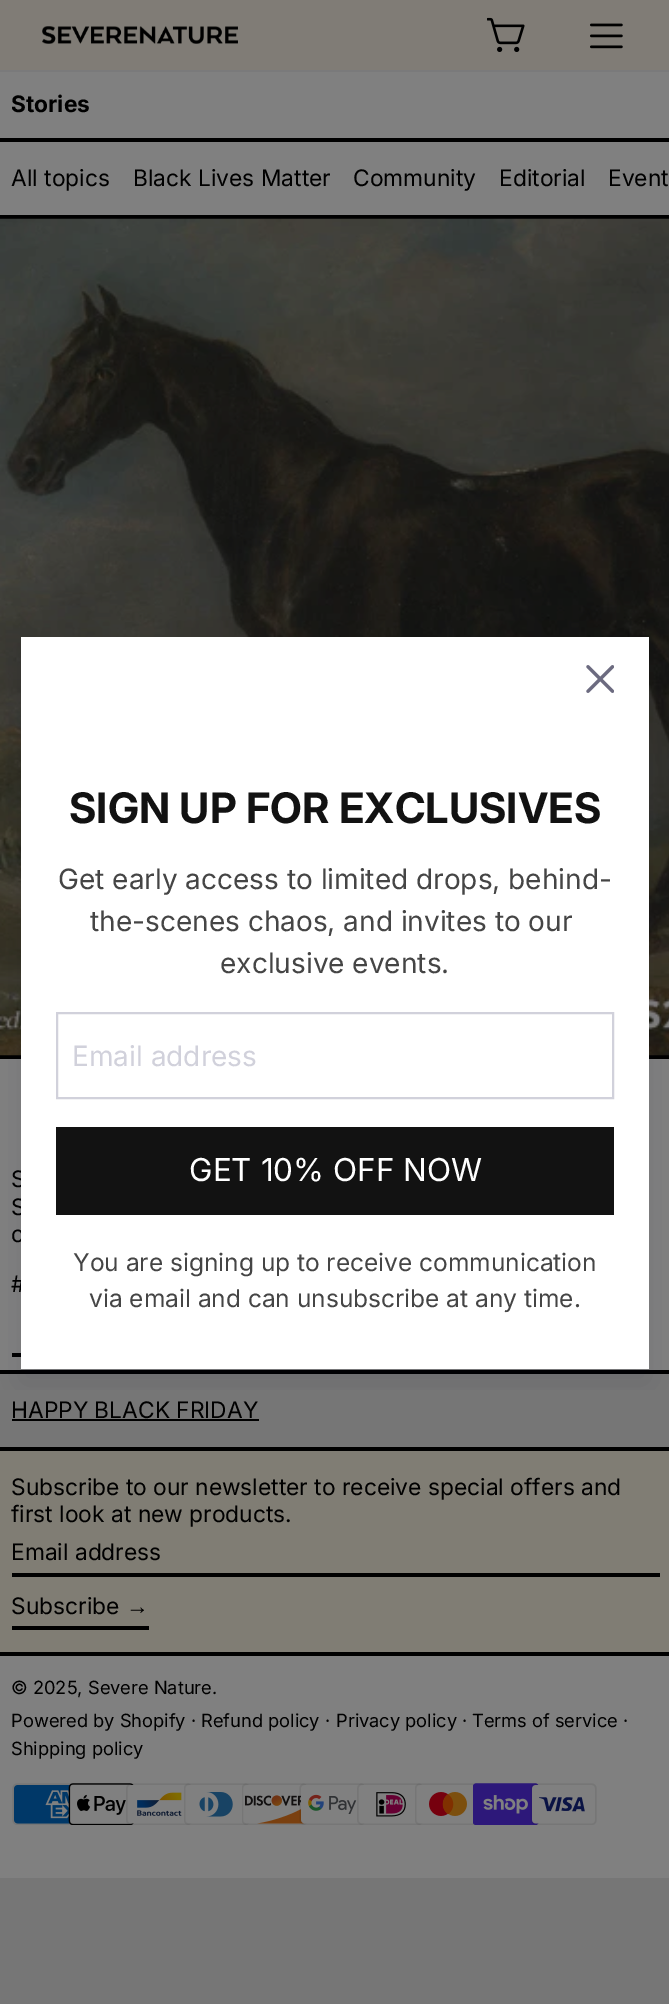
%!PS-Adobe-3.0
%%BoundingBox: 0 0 669 2004
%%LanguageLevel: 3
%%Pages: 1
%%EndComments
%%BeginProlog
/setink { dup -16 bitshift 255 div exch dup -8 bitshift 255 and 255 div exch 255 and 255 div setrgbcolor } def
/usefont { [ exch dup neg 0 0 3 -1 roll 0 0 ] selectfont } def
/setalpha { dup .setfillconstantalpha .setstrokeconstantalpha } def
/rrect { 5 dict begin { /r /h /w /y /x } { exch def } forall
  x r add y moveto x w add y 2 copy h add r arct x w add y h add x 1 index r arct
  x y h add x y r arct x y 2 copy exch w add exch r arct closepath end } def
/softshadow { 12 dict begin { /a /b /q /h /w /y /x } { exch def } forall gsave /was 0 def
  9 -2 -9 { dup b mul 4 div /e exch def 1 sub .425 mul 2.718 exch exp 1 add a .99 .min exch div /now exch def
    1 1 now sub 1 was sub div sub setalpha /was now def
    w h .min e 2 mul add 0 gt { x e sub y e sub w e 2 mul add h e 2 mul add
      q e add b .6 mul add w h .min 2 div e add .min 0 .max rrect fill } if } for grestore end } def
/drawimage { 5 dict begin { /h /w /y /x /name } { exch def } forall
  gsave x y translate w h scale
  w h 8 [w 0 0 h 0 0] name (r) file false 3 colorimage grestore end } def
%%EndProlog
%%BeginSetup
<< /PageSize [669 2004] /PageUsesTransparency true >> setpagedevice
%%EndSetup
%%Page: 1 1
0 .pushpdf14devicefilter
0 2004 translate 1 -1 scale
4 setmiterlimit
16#767676 setink
0 0 669 2004 rectfill
16#807C76 setink
0 0 669 70 rectfill
16#7A7A7B setink
0 70 669 2 rectfill
(img1.raw) 42 26 196 18 drawimage
(img2.raw) 487 17 38 35 drawimage
(img3.raw) 590 23 33 26 drawimage
[
    [0 72 669 143 16#808080]
    [0 1370 669 4 16#000000]
    [0 138 669 4 16#000000]
] { aload pop setink rectfill } forall
/Inter-Bold 22.75 usefont
11 112 moveto (Stories) show
0 215 669 4 rectfill
/Inter-Regular 22.75 usefont
[
    [(All topics) 11 186]
    [(Black Lives Matter) 133 186]
    [(Community) 353 186]
    [(Editorial) 499 186]
    [(Event) 608 186]
] { aload pop moveto show } forall
16#808080 setink
0 1059 669 311 rectfill
16#000000 setink
0 1055 669 4 rectfill
(img4.raw) 0 218 669 838 drawimage
[
    [(S) 11 1187]
    [(S) 11 1215]
    [(c) 11 1242]
    [(#) 11 1292]
] { aload pop moveto show } forall
12 1353 9 4 rectfill
0 1447 669 4 rectfill
11 1418 moveto (HAPPY BLACK FRIDAY) show
12 1419 247 2 rectfill
gsave
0 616 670 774 rectclip
16#121127 setink
21 651 628 732 0 17.5 0.1 softshadow
grestore
16#FFFFFF setink
21 637 628 732 rectfill
(img5.raw) 586 665 28 28 drawimage
/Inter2-Bold 42 usefont
16#121212 setink
69 823 moveto (SIGN UP FOR EXCLUSIVES) show
/Inter-Regular 28 usefont
16#454545 setink
[
    [(Get early access to limited drops, behind-) 58 889]
    [(the-scenes chaos, and invites to our) 90 931]
    [(exclusive events.) 220 973]
] { aload pop moveto show } forall
16#D1D1DB setink
2 setlinewidth
57 1013 556 85 rectstroke
72 1066 moveto (Email address) show
16#121212 setink
56 1127 558 88 rectfill
/Inter-Regular 31.5 usefont
16#FFFFFF setink
189 1181 moveto (GET 10% OFF NOW) show
/Inter-Regular 24.5 usefont
16#454545 setink
73 1271 moveto (You are signing up to receive communication) show
89 1307 moveto (via email and can unsubscribe at any time.) show
[
    [0 1656 669 222 16#808080]
    [0 1451 669 201 16#807D74]
    [0 1652 669 4 16#000000]
] { aload pop setink rectfill } forall
/Inter-Regular 22.75 usefont
11 1495 moveto (Subscribe to our newsletter to receive special offers and) show
11 1522 moveto (first look at new products.) show
12 1573 648 4 rectfill
11 1560 moveto (Email address) show
12 1626 137 4 rectfill
11 1614 moveto (Subscribe) show
/LiberationSans-Regular 22.75 usefont
126 1614 moveto (→) show
/Inter-Regular 18.25 usefont
[
    [(© 2025, Severe Nature.) 11 1694]
    [(Powered by Shopify ·) 11 1727]
    [(Refund policy ·) 201 1727]
    [(Privacy policy ·) 336 1727]
    [(Terms of service ·) 472 1727]
    [(Shipping policy) 11 1755]
] { aload pop moveto show } forall
(img6.raw) 12 1783 64 42 drawimage
(img7.raw) 68 1783 66 42 drawimage
(img8.raw) 126 1783 65 42 drawimage
(img9.raw) 184 1783 65 42 drawimage
(img10.raw) 242 1783 65 42 drawimage
(img11.raw) 299 1783 66 42 drawimage
(img12.raw) 357 1783 65 42 drawimage
(img13.raw) 415 1783 63 42 drawimage
(img14.raw) 473 1783 66 42 drawimage
(img15.raw) 530 1783 67 42 drawimage
.poppdf14devicefilter showpage
%%EOF
